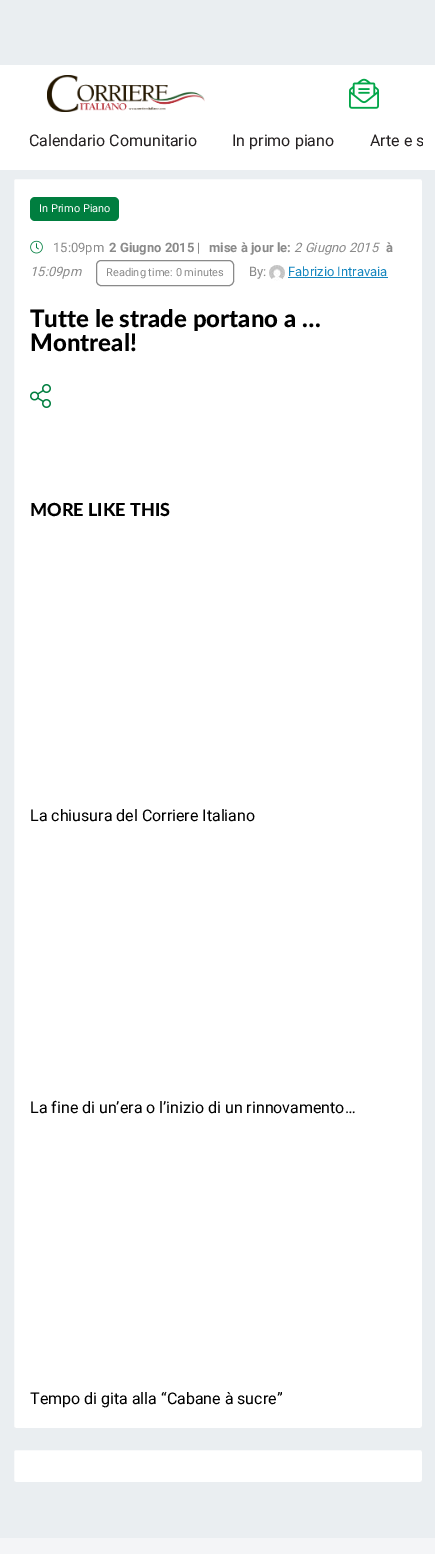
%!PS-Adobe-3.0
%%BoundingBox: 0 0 435 1554
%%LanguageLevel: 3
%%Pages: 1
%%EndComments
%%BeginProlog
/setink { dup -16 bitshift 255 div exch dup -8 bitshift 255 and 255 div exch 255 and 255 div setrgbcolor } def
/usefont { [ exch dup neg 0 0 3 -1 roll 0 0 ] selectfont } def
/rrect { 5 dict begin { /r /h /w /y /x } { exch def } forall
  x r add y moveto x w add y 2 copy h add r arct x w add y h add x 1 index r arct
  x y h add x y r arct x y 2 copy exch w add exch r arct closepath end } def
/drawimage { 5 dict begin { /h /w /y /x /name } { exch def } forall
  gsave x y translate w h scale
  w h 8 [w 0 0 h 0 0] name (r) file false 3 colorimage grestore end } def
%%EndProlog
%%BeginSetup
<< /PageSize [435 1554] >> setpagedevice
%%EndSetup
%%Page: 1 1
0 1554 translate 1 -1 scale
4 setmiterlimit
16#EAEEF1 setink
0 0 435 1554 rectfill
16#FFFFFF setink
0 65 435 105 rectfill
(img1.raw) 47 75 158 37 drawimage
(img2.raw) 349 78 30 31 drawimage
/Roboto-Regular 16 usefont
16#252122 setink
29 146 moveto (Calendario Comunitario) show
232 146 moveto (In primo piano) show
gsave
13 122 410 48 rectclip
370 146 moveto (Arte e s) show
grestore
16#FFFFFF setink
13.5 178.5 409 1250 2.5 rrect gsave fill grestore
16#EAEEF1 setink
stroke
16#007E3F setink
30 197 89 24 5 rrect fill
/Roboto-Regular 11 usefont
16#FFFFFF setink
39 212 moveto (In Primo Piano) show
(img3.raw) 30 240 13 14 drawimage
/Roboto-Regular 13 usefont
16#8A8A8A setink
53 252 moveto (15:09pm) show
/Roboto-Bold 13 usefont
109 252 moveto (2 Giugno 2015) show
/Roboto-Regular 13 usefont
197 252 moveto (|) show
/Roboto-Bold 13 usefont
209 252 moveto (mise à jour le:) show
/Roboto-Italic 13 usefont
294 252 moveto (2 Giugno 2015) show
/Roboto-Bold 13 usefont
386 252 moveto (à) show
/Roboto-Italic 13 usefont
30 276 moveto (15:09pm) show
96.5 260.5 137 25 4.5 rrect stroke
/Roboto-Regular 11 usefont
106 276 moveto (Reading time: 0 minutes) show
/Roboto-Regular 13 usefont
249 276 moveto (By:) show
(img4.raw) 269 265 16 16 drawimage
16#1687BF setink
288 276 moveto (Fabrizio Intravaia) show
288 277 100 1 rectfill
/Lato-Black 24 usefont
16#000000 setink
30 327 moveto (Tutte le strade portano a …) show
30 351 moveto (Montreal!) show
(img5.raw) 30 384 21 24 drawimage
/Lato-Black 18 usefont
30 516 moveto (MORE LIKE THIS) show
/Roboto-Regular 16 usefont
[
    [(La chiusura del Corriere Italiano) 30 821]
    [(La fine di un’era o l’inizio di un rinnovamento…) 30 1113]
    [(Tempo di gita alla “Cabane à sucre”) 30 1404]
] { aload pop moveto show } forall
16#FFFFFF setink
13.5 1449.5 409 33 2.5 rrect gsave fill grestore
16#EAEEF1 setink
stroke
16#F4F5F7 setink
0 1538 435 16 rectfill
showpage
%%EOF
